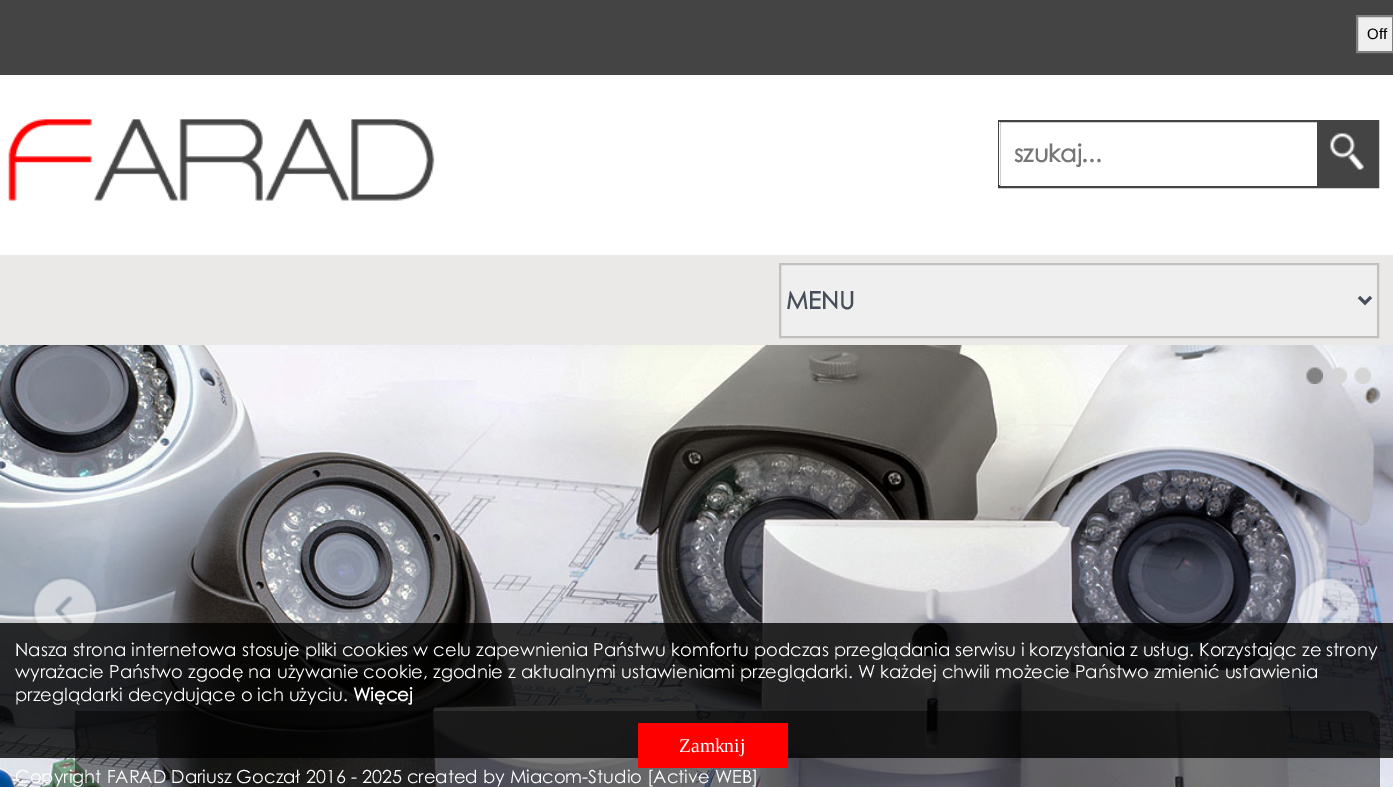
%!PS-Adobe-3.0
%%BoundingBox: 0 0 1393 787
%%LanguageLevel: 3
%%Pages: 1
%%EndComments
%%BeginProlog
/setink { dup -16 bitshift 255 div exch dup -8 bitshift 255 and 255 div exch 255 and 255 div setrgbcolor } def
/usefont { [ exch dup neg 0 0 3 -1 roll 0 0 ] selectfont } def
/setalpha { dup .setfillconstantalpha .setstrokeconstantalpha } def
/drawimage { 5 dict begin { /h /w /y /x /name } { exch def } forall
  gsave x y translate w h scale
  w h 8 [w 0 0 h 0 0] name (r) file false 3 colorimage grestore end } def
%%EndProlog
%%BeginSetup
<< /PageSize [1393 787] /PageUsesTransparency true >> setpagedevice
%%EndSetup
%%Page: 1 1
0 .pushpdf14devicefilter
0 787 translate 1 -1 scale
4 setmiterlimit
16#FFFFFF setink
0 0 1393 787 rectfill
16#444444 setink
0 0 1393 75 rectfill
16#EFEFEF setink
1357 16 moveto 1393 16 lineto 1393 52 lineto 1357 52 lineto closepath gsave fill grestore
16#808080 setink
2 setlinewidth
stroke
/LiberationSans-Regular 15 usefont
16#000000 setink
1367 39 moveto (Off) show
(img1.raw) 8 119 427 82 drawimage
16#444444 setink
999 121 379 66 rectstroke
16#FFFFFF setink
999 122 1 63 rectfill
/CenturyGothic-Bold 24 usefont
16#757575 setink
1014 162 moveto (szukaj...) show
16#444444 setink
1317 122 60 64 rectfill
(img2.raw) 1330 133 34 37 drawimage
16#EBE8E8 setink
0 255 1393 90 rectfill
16#EFEFEF setink
780 264 moveto 1378 264 lineto 1378 337 lineto 780 337 lineto closepath gsave fill grestore
16#C0C0C0 setink
stroke
16#464E5A setink
3 setlinewidth
1359 297 moveto 1365 303 lineto 1371 297 lineto stroke
786 309 moveto (MENU) show
(img3.raw) 0 345 1393 442 drawimage
(img4.raw) 1306 367 17 17 drawimage
(img5.raw) 1330 367 17 17 drawimage
(img6.raw) 1354 367 17 17 drawimage
(img7.raw) 32 576 67 67 drawimage
(img8.raw) 1295 576 67 67 drawimage
0.46 setalpha
16#000000 setink
75 711 moveto 1365 711 lineto 1373.5 711 1380 717.5 1380 726 curveto 1380 787 lineto 1380 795.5 1373.5 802 1365 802 curveto 75 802 lineto closepath fill
0.8 setalpha
0 623 1393 135 rectfill
/CenturyGothic-Regular 18 usefont
1 setalpha
16#FFFFFF setink
[
    [(Nasza strona internetowa stosuje pliki cookies w celu zapewnienia Państwu komfortu podczas przeglądania serwisu i korzystania z usług. Korzystając ze strony) 15 656]
    [(wyrażacie Państwo zgodę na używanie cookie, zgodnie z aktualnymi ustawieniami przeglądarki. W każdej chwili możecie Państwo zmienić ustawienia) 15 678]
    [(przeglądarki decydujące o ich użyciu.) 15 701]
] { aload pop moveto show } forall
/CenturyGothic-Bold 18 usefont
353 701 moveto (Więcej) show
16#FF0000 setink
638 723 150 45 rectfill
/LiberationSerif-Regular 19.5 usefont
16#FFFFFF setink
679 752 moveto (Zamknij) show
/CenturyGothic-Regular 18 usefont
15 783 moveto (Copyright FARAD Dariusz Goczał 2016 - 2025 created by Miacom-Studio [Active WEB]) show
.poppdf14devicefilter showpage
%%EOF
